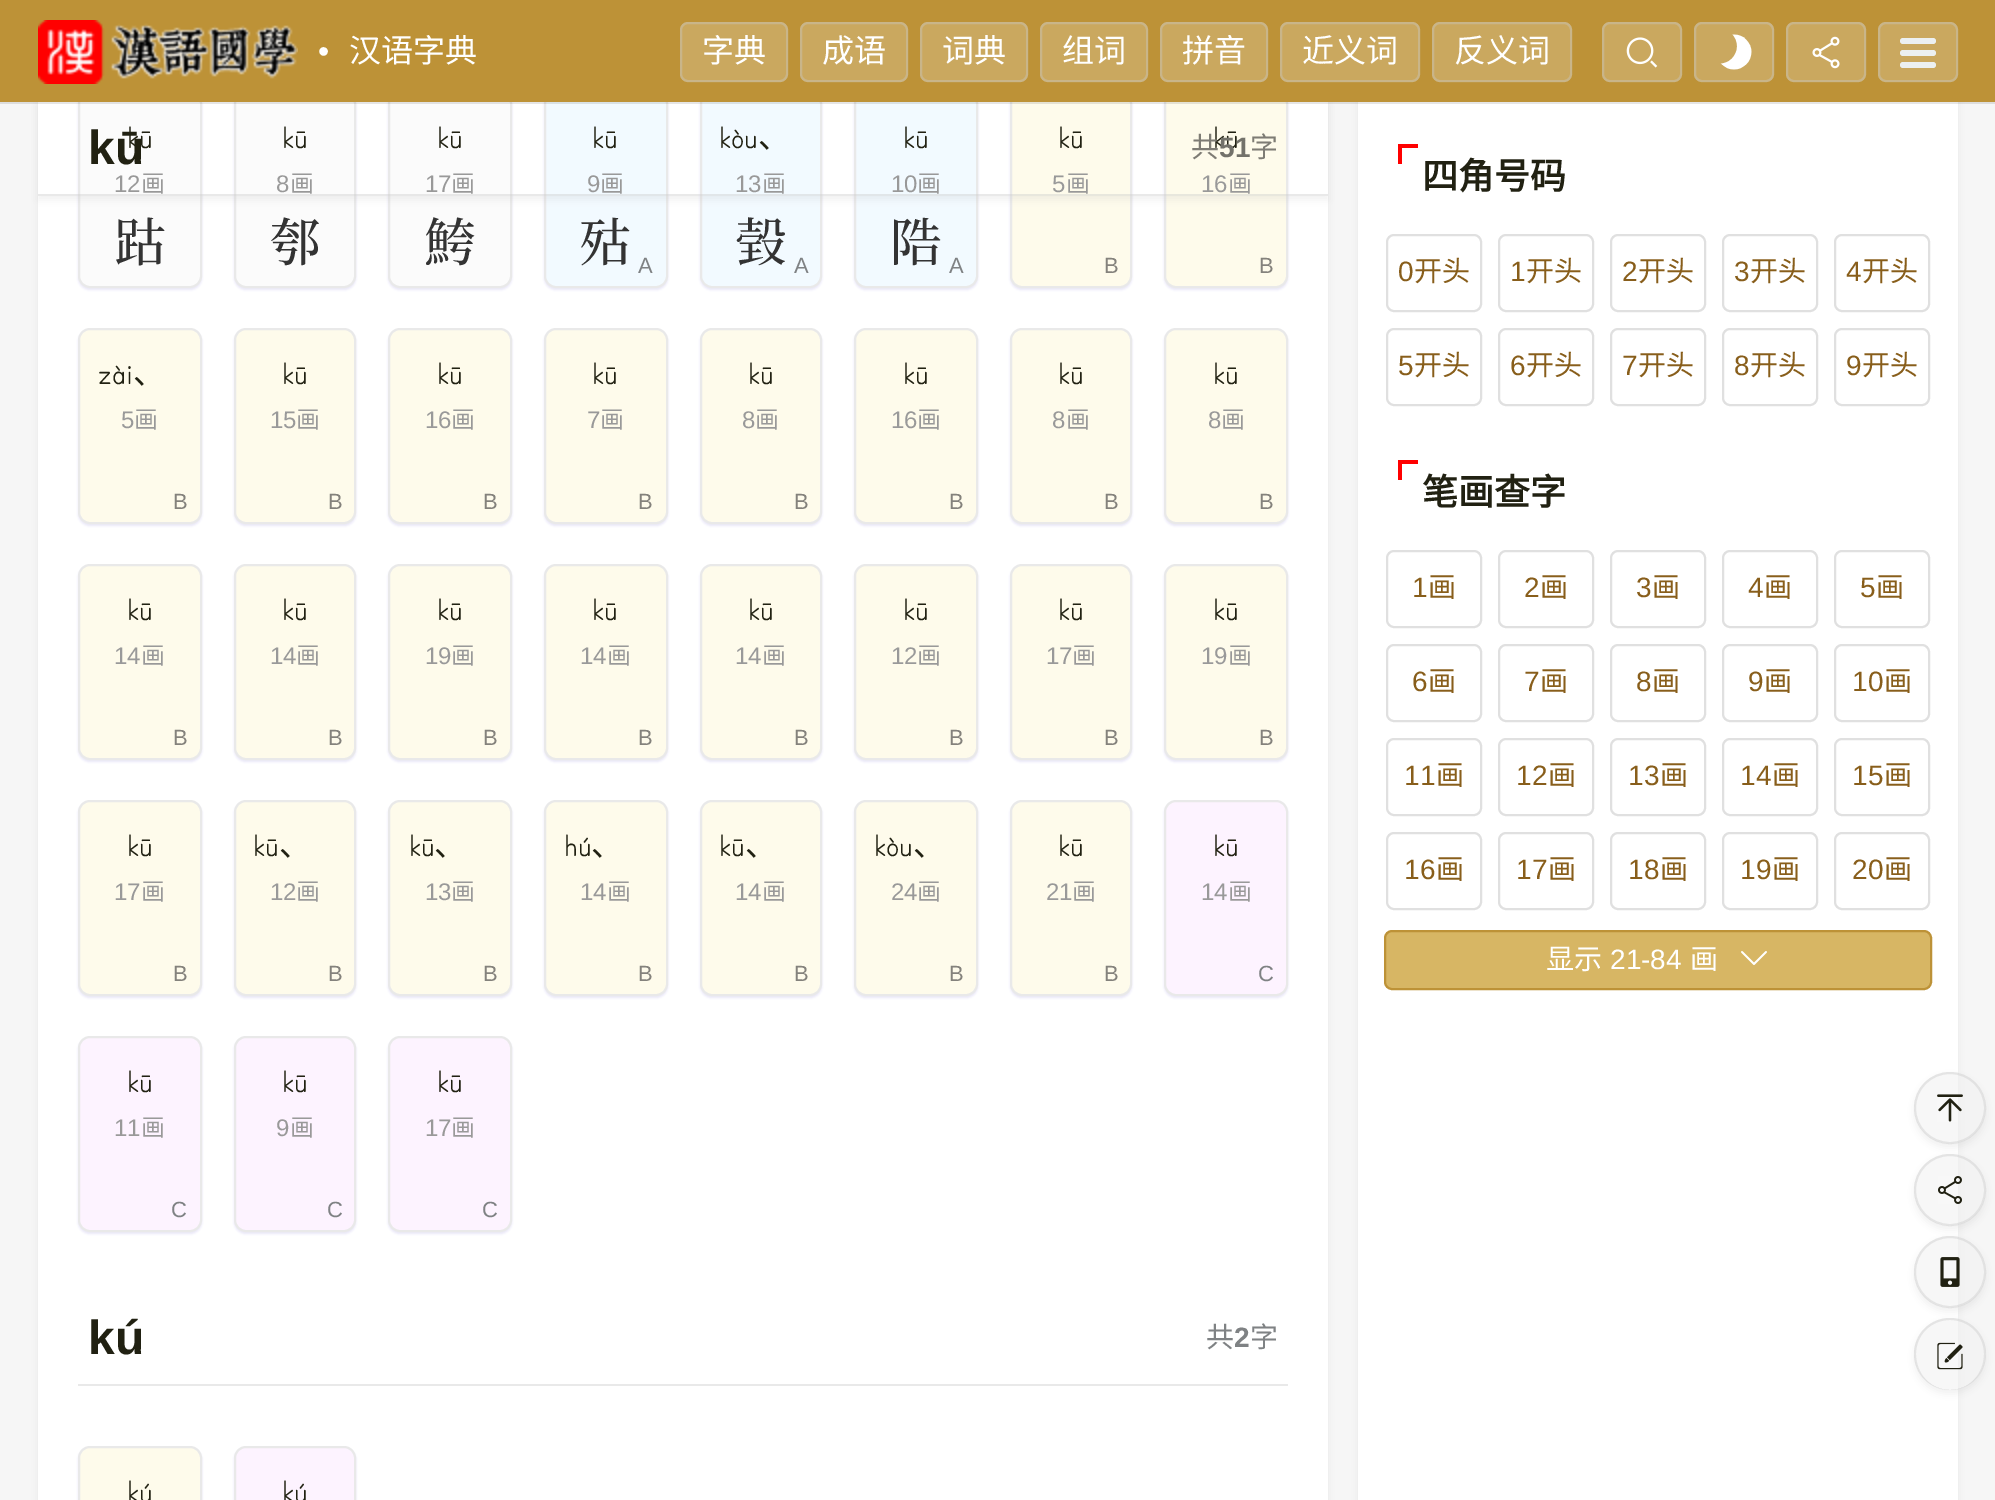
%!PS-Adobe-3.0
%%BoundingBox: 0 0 1995 1500
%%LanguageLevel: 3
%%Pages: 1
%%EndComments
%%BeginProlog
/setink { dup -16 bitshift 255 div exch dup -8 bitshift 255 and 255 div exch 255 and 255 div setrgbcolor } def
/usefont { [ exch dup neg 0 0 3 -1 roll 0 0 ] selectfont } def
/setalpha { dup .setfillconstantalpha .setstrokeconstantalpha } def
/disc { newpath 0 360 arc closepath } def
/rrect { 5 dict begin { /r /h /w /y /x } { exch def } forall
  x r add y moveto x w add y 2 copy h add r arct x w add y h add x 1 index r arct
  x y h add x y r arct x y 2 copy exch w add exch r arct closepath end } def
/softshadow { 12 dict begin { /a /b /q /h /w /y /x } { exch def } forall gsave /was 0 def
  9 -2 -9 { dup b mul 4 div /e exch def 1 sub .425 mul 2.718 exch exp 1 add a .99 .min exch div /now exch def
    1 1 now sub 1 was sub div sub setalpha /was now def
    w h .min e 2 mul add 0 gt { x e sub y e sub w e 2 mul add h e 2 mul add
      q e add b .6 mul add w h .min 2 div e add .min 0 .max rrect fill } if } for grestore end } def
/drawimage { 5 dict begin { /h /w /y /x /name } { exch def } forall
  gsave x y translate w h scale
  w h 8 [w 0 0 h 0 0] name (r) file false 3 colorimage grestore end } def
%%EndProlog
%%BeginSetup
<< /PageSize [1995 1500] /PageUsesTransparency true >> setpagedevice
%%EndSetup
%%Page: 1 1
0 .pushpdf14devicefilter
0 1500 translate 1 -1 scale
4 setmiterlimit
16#F6F6F6 setink
0 0 1995 1500 rectfill
16#C8C8C8 setink
38 -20 1290 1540 8 4 0.3 softshadow
16#FFFFFF setink
38 102 1290 1398 rectfill
gsave
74 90 moveto 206 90 lineto 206 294 lineto 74 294 lineto closepath 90 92 moveto 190 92 lineto 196.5 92 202 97.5 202 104 curveto 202 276 lineto 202 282.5 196.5 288 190 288 curveto 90 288 lineto 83.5 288 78 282.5 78 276 curveto 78 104 lineto 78 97.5 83.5 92 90 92 curveto closepath eoclip newpath
16#341B9F setink
78 94 124 196 12 1 0.1 softshadow
grestore
0.1 setalpha
16#DCDCDC setink
79 93 122 194 11 rrect fill
1 setalpha
16#E9E9E9 setink
2 setlinewidth
79 93 122 194 11 rrect stroke
gsave
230 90 moveto 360 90 lineto 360 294 lineto 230 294 lineto closepath 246 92 moveto 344 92 lineto 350.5 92 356 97.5 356 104 curveto 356 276 lineto 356 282.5 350.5 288 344 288 curveto 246 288 lineto 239.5 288 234 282.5 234 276 curveto 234 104 lineto 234 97.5 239.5 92 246 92 curveto closepath eoclip newpath
16#341B9F setink
234 94 122 196 12 1 0.1 softshadow
grestore
0.1 setalpha
16#DCDCDC setink
235 93 120 194 11 rrect fill
1 setalpha
16#E9E9E9 setink
235 93 120 194 11 rrect stroke
gsave
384 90 moveto 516 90 lineto 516 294 lineto 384 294 lineto closepath 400 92 moveto 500 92 lineto 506.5 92 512 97.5 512 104 curveto 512 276 lineto 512 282.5 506.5 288 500 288 curveto 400 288 lineto 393.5 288 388 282.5 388 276 curveto 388 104 lineto 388 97.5 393.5 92 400 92 curveto closepath eoclip newpath
16#341B9F setink
388 94 124 196 12 1 0.1 softshadow
grestore
0.1 setalpha
16#DCDCDC setink
389 93 122 194 11 rrect fill
1 setalpha
16#E9E9E9 setink
389 93 122 194 11 rrect stroke
gsave
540 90 moveto 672 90 lineto 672 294 lineto 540 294 lineto closepath 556 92 moveto 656 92 lineto 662.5 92 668 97.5 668 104 curveto 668 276 lineto 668 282.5 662.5 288 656 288 curveto 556 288 lineto 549.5 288 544 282.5 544 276 curveto 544 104 lineto 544 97.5 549.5 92 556 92 curveto closepath eoclip newpath
16#341B9F setink
544 94 124 196 12 1 0.1 softshadow
grestore
0.1 setalpha
16#7DD2FF setink
545 93 122 194 11 rrect fill
1 setalpha
16#E9E9E9 setink
545 93 122 194 11 rrect stroke
gsave
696 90 moveto 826 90 lineto 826 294 lineto 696 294 lineto closepath 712 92 moveto 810 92 lineto 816.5 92 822 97.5 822 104 curveto 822 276 lineto 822 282.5 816.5 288 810 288 curveto 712 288 lineto 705.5 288 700 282.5 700 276 curveto 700 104 lineto 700 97.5 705.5 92 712 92 curveto closepath eoclip newpath
16#341B9F setink
700 94 122 196 12 1 0.1 softshadow
grestore
0.1 setalpha
16#7DD2FF setink
701 93 120 194 11 rrect fill
1 setalpha
16#E9E9E9 setink
701 93 120 194 11 rrect stroke
gsave
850 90 moveto 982 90 lineto 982 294 lineto 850 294 lineto closepath 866 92 moveto 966 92 lineto 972.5 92 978 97.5 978 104 curveto 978 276 lineto 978 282.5 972.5 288 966 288 curveto 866 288 lineto 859.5 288 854 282.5 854 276 curveto 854 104 lineto 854 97.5 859.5 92 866 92 curveto closepath eoclip newpath
16#341B9F setink
854 94 124 196 12 1 0.1 softshadow
grestore
0.1 setalpha
16#7DD2FF setink
855 93 122 194 11 rrect fill
1 setalpha
16#E9E9E9 setink
855 93 122 194 11 rrect stroke
gsave
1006 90 moveto 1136 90 lineto 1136 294 lineto 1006 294 lineto closepath 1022 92 moveto 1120 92 lineto 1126.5 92 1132 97.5 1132 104 curveto 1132 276 lineto 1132 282.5 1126.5 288 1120 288 curveto 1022 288 lineto 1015.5 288 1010 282.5 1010 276 curveto 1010 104 lineto 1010 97.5 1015.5 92 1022 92 curveto closepath eoclip newpath
16#341B9F setink
1010 94 122 196 12 1 0.1 softshadow
grestore
0.1 setalpha
16#F8D73C setink
1011 93 120 194 11 rrect fill
1 setalpha
16#E9E9E9 setink
1011 93 120 194 11 rrect stroke
gsave
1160 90 moveto 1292 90 lineto 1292 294 lineto 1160 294 lineto closepath 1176 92 moveto 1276 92 lineto 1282.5 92 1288 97.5 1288 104 curveto 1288 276 lineto 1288 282.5 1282.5 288 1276 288 curveto 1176 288 lineto 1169.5 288 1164 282.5 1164 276 curveto 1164 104 lineto 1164 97.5 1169.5 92 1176 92 curveto closepath eoclip newpath
16#341B9F setink
1164 94 124 196 12 1 0.1 softshadow
grestore
0.1 setalpha
16#F8D73C setink
1165 93 122 194 11 rrect fill
1 setalpha
16#E9E9E9 setink
1165 93 122 194 11 rrect stroke
gsave
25 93 moveto 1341 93 lineto 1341 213 lineto 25 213 lineto closepath 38 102 moveto 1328 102 lineto 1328 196 lineto 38 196 lineto closepath eoclip newpath
16#C8C8C8 setink
38 106 1290 94 0 4 0.3 softshadow
grestore
16#C8C8C8 setink
1358 -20 600 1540 8 4 0.3 softshadow
[
    [1358 102 600 1398 16#FFFFFF]
] { aload pop setink rectfill } forall
0.1 setalpha
[
    [0 102 1995 2 16#000000]
] { aload pop setink rectfill } forall
1 setalpha
[
    [0 0 1995 102 16#BD9237]
] { aload pop setink rectfill } forall
(img1.raw) 38 20 260 64 drawimage
/LiberationSans-Regular 32 usefont
16#FFFFFF setink
318 62 moveto (•) show
/NotoSansCJKSC-Regular 32 usefont
349 62 moveto (汉语字典) show
16#CAA85F setink
680 22 108 60 8 rrect fill
0.4 setalpha
16#C8C8C8 setink
681 23 106 58 7 rrect stroke
1 setalpha
16#FFFFFF setink
702 62 moveto (字典) show
16#CAA85F setink
800 22 108 60 8 rrect fill
0.4 setalpha
16#C8C8C8 setink
801 23 106 58 7 rrect stroke
1 setalpha
16#FFFFFF setink
822 62 moveto (成语) show
16#CAA85F setink
920 22 108 60 8 rrect fill
0.4 setalpha
16#C8C8C8 setink
921 23 106 58 7 rrect stroke
1 setalpha
16#FFFFFF setink
942 62 moveto (词典) show
16#CAA85F setink
1040 22 108 60 8 rrect fill
0.4 setalpha
16#C8C8C8 setink
1041 23 106 58 7 rrect stroke
1 setalpha
16#FFFFFF setink
1062 62 moveto (组词) show
16#CAA85F setink
1160 22 108 60 8 rrect fill
0.4 setalpha
16#C8C8C8 setink
1161 23 106 58 7 rrect stroke
1 setalpha
16#FFFFFF setink
1182 62 moveto (拼音) show
16#CAA85F setink
1280 22 140 60 8 rrect fill
0.4 setalpha
16#C8C8C8 setink
1281 23 138 58 7 rrect stroke
1 setalpha
16#FFFFFF setink
1302 62 moveto (近义词) show
16#CAA85F setink
1432 22 140 60 8 rrect fill
0.4 setalpha
16#C8C8C8 setink
1433 23 138 58 7 rrect stroke
1 setalpha
16#FFFFFF setink
1454 62 moveto (反义词) show
16#CAA85F setink
1602 22 80 60 8 rrect fill
0.4 setalpha
16#C8C8C8 setink
1603 23 78 58 7 rrect stroke
1 setalpha
(img2.raw) 1626 37 32 31 drawimage
16#CAA85F setink
1694 22 80 60 8 rrect fill
0.4 setalpha
16#C8C8C8 setink
1695 23 78 58 7 rrect stroke
1 setalpha
(img3.raw) 1720 34 32 36 drawimage
16#CAA85F setink
1786 22 80 60 8 rrect fill
0.4 setalpha
16#C8C8C8 setink
1787 23 78 58 7 rrect stroke
1 setalpha
(img4.raw) 1812 36 28 33 drawimage
16#CAA85F setink
1878 22 80 60 8 rrect fill
0.4 setalpha
16#C8C8C8 setink
1879 23 78 58 7 rrect stroke
1 setalpha
16#ECF0F1 setink
1900 38 36 6 3 rrect fill
1900 50 36 6 3 rrect fill
1900 62 36 6 3 rrect fill
/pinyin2-Regular 32 usefont
16#212112 setink
127 148 moveto (kū) show
/LiberationSans-Regular 24 usefont
16#999999 setink
114 192 moveto (12) show
/NotoSansCJKSC-Regular 24 usefont
141 192 moveto (画) show
/NotoSerifCJKSC-Medium 52 usefont
16#333333 setink
114 261 moveto (跍) show
/pinyin2-Regular 32 usefont
16#212112 setink
282 148 moveto (kū) show
/LiberationSans-Regular 24 usefont
16#999999 setink
276 192 moveto (8) show
/NotoSansCJKSC-Regular 24 usefont
290 192 moveto (画) show
/NotoSerifCJKSC-Medium 52 usefont
16#333333 setink
269 261 moveto (郀) show
/pinyin2-Regular 32 usefont
16#212112 setink
437 148 moveto (kū) show
/LiberationSans-Regular 24 usefont
16#999999 setink
425 192 moveto (17) show
/NotoSansCJKSC-Regular 24 usefont
451 192 moveto (画) show
/NotoSerifCJKSC-Medium 52 usefont
16#333333 setink
424 261 moveto (鮬) show
/pinyin2-Regular 32 usefont
16#212112 setink
592 148 moveto (kū) show
/LiberationSans-Regular 24 usefont
16#999999 setink
587 192 moveto (9) show
/NotoSansCJKSC-Regular 24 usefont
600 192 moveto (画) show
/NotoSerifCJKSC-Medium 52 usefont
16#333333 setink
579 261 moveto (㱠) show
/LiberationSans-Regular 22 usefont
16#7F8284 setink
638 273 moveto (A) show
/pinyin2-Regular 32 usefont
16#212112 setink
719 148 moveto (kòu) show
/NotoSansCJKSC-Regular 32 usefont
758 148 moveto (、) show
/LiberationSans-Regular 24 usefont
16#999999 setink
735 192 moveto (13) show
/NotoSansCJKSC-Regular 24 usefont
762 192 moveto (画) show
/NotoSerifCJKSC-Medium 52 usefont
16#333333 setink
735 261 moveto (㲄) show
/LiberationSans-Regular 22 usefont
16#7F8284 setink
794 273 moveto (A) show
/pinyin2-Regular 32 usefont
16#212112 setink
903 148 moveto (kū) show
/LiberationSans-Regular 24 usefont
16#999999 setink
891 192 moveto (10) show
/NotoSansCJKSC-Regular 24 usefont
917 192 moveto (画) show
/NotoSerifCJKSC-Medium 52 usefont
16#333333 setink
890 261 moveto (䧊) show
/LiberationSans-Regular 22 usefont
16#7F8284 setink
949 273 moveto (A) show
/pinyin2-Regular 32 usefont
16#212112 setink
1058 148 moveto (kū) show
/LiberationSans-Regular 24 usefont
16#999999 setink
1052 192 moveto (5) show
/NotoSansCJKSC-Regular 24 usefont
1066 192 moveto (画) show
/LiberationSans-Regular 22 usefont
16#84827C setink
1104 273 moveto (B) show
/pinyin2-Regular 32 usefont
16#212112 setink
1213 148 moveto (kū) show
/LiberationSans-Regular 24 usefont
16#999999 setink
1201 192 moveto (16) show
/NotoSansCJKSC-Regular 24 usefont
1228 192 moveto (画) show
/LiberationSans-Regular 22 usefont
16#84827C setink
1259 273 moveto (B) show
gsave
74 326 moveto 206 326 lineto 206 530 lineto 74 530 lineto closepath 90 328 moveto 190 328 lineto 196.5 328 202 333.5 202 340 curveto 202 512 lineto 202 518.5 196.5 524 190 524 curveto 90 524 lineto 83.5 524 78 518.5 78 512 curveto 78 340 lineto 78 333.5 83.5 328 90 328 curveto closepath eoclip newpath
16#341B9F setink
78 330 124 196 12 1 0.1 softshadow
grestore
0.1 setalpha
16#F8D73C setink
79 329 122 194 11 rrect fill
1 setalpha
16#E9E9E9 setink
79 329 122 194 11 rrect stroke
/pinyin2-Regular 32 usefont
16#212112 setink
98 384 moveto (zài) show
/NotoSansCJKSC-Regular 32 usefont
133 384 moveto (、) show
/LiberationSans-Regular 24 usefont
16#999999 setink
121 428 moveto (5) show
/NotoSansCJKSC-Regular 24 usefont
134 428 moveto (画) show
/LiberationSans-Regular 22 usefont
16#84827C setink
173 509 moveto (B) show
gsave
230 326 moveto 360 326 lineto 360 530 lineto 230 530 lineto closepath 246 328 moveto 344 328 lineto 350.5 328 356 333.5 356 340 curveto 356 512 lineto 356 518.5 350.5 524 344 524 curveto 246 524 lineto 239.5 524 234 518.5 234 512 curveto 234 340 lineto 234 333.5 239.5 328 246 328 curveto closepath eoclip newpath
16#341B9F setink
234 330 122 196 12 1 0.1 softshadow
grestore
0.1 setalpha
16#F8D73C setink
235 329 120 194 11 rrect fill
1 setalpha
16#E9E9E9 setink
235 329 120 194 11 rrect stroke
/pinyin2-Regular 32 usefont
16#212112 setink
282 384 moveto (kū) show
/LiberationSans-Regular 24 usefont
16#999999 setink
270 428 moveto (15) show
/NotoSansCJKSC-Regular 24 usefont
296 428 moveto (画) show
/LiberationSans-Regular 22 usefont
16#84827C setink
328 509 moveto (B) show
gsave
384 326 moveto 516 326 lineto 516 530 lineto 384 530 lineto closepath 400 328 moveto 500 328 lineto 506.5 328 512 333.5 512 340 curveto 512 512 lineto 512 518.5 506.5 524 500 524 curveto 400 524 lineto 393.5 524 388 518.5 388 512 curveto 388 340 lineto 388 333.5 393.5 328 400 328 curveto closepath eoclip newpath
16#341B9F setink
388 330 124 196 12 1 0.1 softshadow
grestore
0.1 setalpha
16#F8D73C setink
389 329 122 194 11 rrect fill
1 setalpha
16#E9E9E9 setink
389 329 122 194 11 rrect stroke
/pinyin2-Regular 32 usefont
16#212112 setink
437 384 moveto (kū) show
/LiberationSans-Regular 24 usefont
16#999999 setink
425 428 moveto (16) show
/NotoSansCJKSC-Regular 24 usefont
451 428 moveto (画) show
/LiberationSans-Regular 22 usefont
16#84827C setink
483 509 moveto (B) show
gsave
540 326 moveto 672 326 lineto 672 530 lineto 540 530 lineto closepath 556 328 moveto 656 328 lineto 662.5 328 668 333.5 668 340 curveto 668 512 lineto 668 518.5 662.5 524 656 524 curveto 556 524 lineto 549.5 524 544 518.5 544 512 curveto 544 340 lineto 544 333.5 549.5 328 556 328 curveto closepath eoclip newpath
16#341B9F setink
544 330 124 196 12 1 0.1 softshadow
grestore
0.1 setalpha
16#F8D73C setink
545 329 122 194 11 rrect fill
1 setalpha
16#E9E9E9 setink
545 329 122 194 11 rrect stroke
/pinyin2-Regular 32 usefont
16#212112 setink
592 384 moveto (kū) show
/LiberationSans-Regular 24 usefont
16#999999 setink
587 428 moveto (7) show
/NotoSansCJKSC-Regular 24 usefont
600 428 moveto (画) show
/LiberationSans-Regular 22 usefont
16#84827C setink
638 509 moveto (B) show
gsave
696 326 moveto 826 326 lineto 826 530 lineto 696 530 lineto closepath 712 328 moveto 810 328 lineto 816.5 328 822 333.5 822 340 curveto 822 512 lineto 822 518.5 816.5 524 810 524 curveto 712 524 lineto 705.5 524 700 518.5 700 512 curveto 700 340 lineto 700 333.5 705.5 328 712 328 curveto closepath eoclip newpath
16#341B9F setink
700 330 122 196 12 1 0.1 softshadow
grestore
0.1 setalpha
16#F8D73C setink
701 329 120 194 11 rrect fill
1 setalpha
16#E9E9E9 setink
701 329 120 194 11 rrect stroke
/pinyin2-Regular 32 usefont
16#212112 setink
748 384 moveto (kū) show
/LiberationSans-Regular 24 usefont
16#999999 setink
742 428 moveto (8) show
/NotoSansCJKSC-Regular 24 usefont
755 428 moveto (画) show
/LiberationSans-Regular 22 usefont
16#84827C setink
794 509 moveto (B) show
gsave
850 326 moveto 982 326 lineto 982 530 lineto 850 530 lineto closepath 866 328 moveto 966 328 lineto 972.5 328 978 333.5 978 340 curveto 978 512 lineto 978 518.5 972.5 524 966 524 curveto 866 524 lineto 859.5 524 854 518.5 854 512 curveto 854 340 lineto 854 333.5 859.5 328 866 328 curveto closepath eoclip newpath
16#341B9F setink
854 330 124 196 12 1 0.1 softshadow
grestore
0.1 setalpha
16#F8D73C setink
855 329 122 194 11 rrect fill
1 setalpha
16#E9E9E9 setink
855 329 122 194 11 rrect stroke
/pinyin2-Regular 32 usefont
16#212112 setink
903 384 moveto (kū) show
/LiberationSans-Regular 24 usefont
16#999999 setink
891 428 moveto (16) show
/NotoSansCJKSC-Regular 24 usefont
917 428 moveto (画) show
/LiberationSans-Regular 22 usefont
16#84827C setink
949 509 moveto (B) show
gsave
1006 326 moveto 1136 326 lineto 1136 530 lineto 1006 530 lineto closepath 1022 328 moveto 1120 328 lineto 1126.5 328 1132 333.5 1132 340 curveto 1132 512 lineto 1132 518.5 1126.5 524 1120 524 curveto 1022 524 lineto 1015.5 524 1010 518.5 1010 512 curveto 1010 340 lineto 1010 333.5 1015.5 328 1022 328 curveto closepath eoclip newpath
16#341B9F setink
1010 330 122 196 12 1 0.1 softshadow
grestore
0.1 setalpha
16#F8D73C setink
1011 329 120 194 11 rrect fill
1 setalpha
16#E9E9E9 setink
1011 329 120 194 11 rrect stroke
/pinyin2-Regular 32 usefont
16#212112 setink
1058 384 moveto (kū) show
/LiberationSans-Regular 24 usefont
16#999999 setink
1052 428 moveto (8) show
/NotoSansCJKSC-Regular 24 usefont
1066 428 moveto (画) show
/LiberationSans-Regular 22 usefont
16#84827C setink
1104 509 moveto (B) show
gsave
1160 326 moveto 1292 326 lineto 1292 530 lineto 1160 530 lineto closepath 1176 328 moveto 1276 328 lineto 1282.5 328 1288 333.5 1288 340 curveto 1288 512 lineto 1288 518.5 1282.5 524 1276 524 curveto 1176 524 lineto 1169.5 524 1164 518.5 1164 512 curveto 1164 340 lineto 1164 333.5 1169.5 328 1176 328 curveto closepath eoclip newpath
16#341B9F setink
1164 330 124 196 12 1 0.1 softshadow
grestore
0.1 setalpha
16#F8D73C setink
1165 329 122 194 11 rrect fill
1 setalpha
16#E9E9E9 setink
1165 329 122 194 11 rrect stroke
/pinyin2-Regular 32 usefont
16#212112 setink
1213 384 moveto (kū) show
/LiberationSans-Regular 24 usefont
16#999999 setink
1208 428 moveto (8) show
/NotoSansCJKSC-Regular 24 usefont
1221 428 moveto (画) show
/LiberationSans-Regular 22 usefont
16#84827C setink
1259 509 moveto (B) show
gsave
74 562 moveto 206 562 lineto 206 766 lineto 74 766 lineto closepath 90 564 moveto 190 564 lineto 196.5 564 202 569.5 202 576 curveto 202 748 lineto 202 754.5 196.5 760 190 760 curveto 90 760 lineto 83.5 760 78 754.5 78 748 curveto 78 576 lineto 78 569.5 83.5 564 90 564 curveto closepath eoclip newpath
16#341B9F setink
78 566 124 196 12 1 0.1 softshadow
grestore
0.1 setalpha
16#F8D73C setink
79 565 122 194 11 rrect fill
1 setalpha
16#E9E9E9 setink
79 565 122 194 11 rrect stroke
/pinyin2-Regular 32 usefont
16#212112 setink
127 620 moveto (kū) show
/LiberationSans-Regular 24 usefont
16#999999 setink
114 664 moveto (14) show
/NotoSansCJKSC-Regular 24 usefont
141 664 moveto (画) show
/LiberationSans-Regular 22 usefont
16#84827C setink
173 745 moveto (B) show
gsave
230 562 moveto 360 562 lineto 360 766 lineto 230 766 lineto closepath 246 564 moveto 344 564 lineto 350.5 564 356 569.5 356 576 curveto 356 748 lineto 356 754.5 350.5 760 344 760 curveto 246 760 lineto 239.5 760 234 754.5 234 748 curveto 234 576 lineto 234 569.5 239.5 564 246 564 curveto closepath eoclip newpath
16#341B9F setink
234 566 122 196 12 1 0.1 softshadow
grestore
0.1 setalpha
16#F8D73C setink
235 565 120 194 11 rrect fill
1 setalpha
16#E9E9E9 setink
235 565 120 194 11 rrect stroke
/pinyin2-Regular 32 usefont
16#212112 setink
282 620 moveto (kū) show
/LiberationSans-Regular 24 usefont
16#999999 setink
270 664 moveto (14) show
/NotoSansCJKSC-Regular 24 usefont
296 664 moveto (画) show
/LiberationSans-Regular 22 usefont
16#84827C setink
328 745 moveto (B) show
gsave
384 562 moveto 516 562 lineto 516 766 lineto 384 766 lineto closepath 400 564 moveto 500 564 lineto 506.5 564 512 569.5 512 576 curveto 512 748 lineto 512 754.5 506.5 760 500 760 curveto 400 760 lineto 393.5 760 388 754.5 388 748 curveto 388 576 lineto 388 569.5 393.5 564 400 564 curveto closepath eoclip newpath
16#341B9F setink
388 566 124 196 12 1 0.1 softshadow
grestore
0.1 setalpha
16#F8D73C setink
389 565 122 194 11 rrect fill
1 setalpha
16#E9E9E9 setink
389 565 122 194 11 rrect stroke
/pinyin2-Regular 32 usefont
16#212112 setink
437 620 moveto (kū) show
/LiberationSans-Regular 24 usefont
16#999999 setink
425 664 moveto (19) show
/NotoSansCJKSC-Regular 24 usefont
451 664 moveto (画) show
/LiberationSans-Regular 22 usefont
16#84827C setink
483 745 moveto (B) show
gsave
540 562 moveto 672 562 lineto 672 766 lineto 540 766 lineto closepath 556 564 moveto 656 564 lineto 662.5 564 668 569.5 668 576 curveto 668 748 lineto 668 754.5 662.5 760 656 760 curveto 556 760 lineto 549.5 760 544 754.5 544 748 curveto 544 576 lineto 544 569.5 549.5 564 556 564 curveto closepath eoclip newpath
16#341B9F setink
544 566 124 196 12 1 0.1 softshadow
grestore
0.1 setalpha
16#F8D73C setink
545 565 122 194 11 rrect fill
1 setalpha
16#E9E9E9 setink
545 565 122 194 11 rrect stroke
/pinyin2-Regular 32 usefont
16#212112 setink
592 620 moveto (kū) show
/LiberationSans-Regular 24 usefont
16#999999 setink
580 664 moveto (14) show
/NotoSansCJKSC-Regular 24 usefont
607 664 moveto (画) show
/LiberationSans-Regular 22 usefont
16#84827C setink
638 745 moveto (B) show
gsave
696 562 moveto 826 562 lineto 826 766 lineto 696 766 lineto closepath 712 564 moveto 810 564 lineto 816.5 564 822 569.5 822 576 curveto 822 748 lineto 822 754.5 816.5 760 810 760 curveto 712 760 lineto 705.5 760 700 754.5 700 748 curveto 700 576 lineto 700 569.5 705.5 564 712 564 curveto closepath eoclip newpath
16#341B9F setink
700 566 122 196 12 1 0.1 softshadow
grestore
0.1 setalpha
16#F8D73C setink
701 565 120 194 11 rrect fill
1 setalpha
16#E9E9E9 setink
701 565 120 194 11 rrect stroke
/pinyin2-Regular 32 usefont
16#212112 setink
748 620 moveto (kū) show
/LiberationSans-Regular 24 usefont
16#999999 setink
735 664 moveto (14) show
/NotoSansCJKSC-Regular 24 usefont
762 664 moveto (画) show
/LiberationSans-Regular 22 usefont
16#84827C setink
794 745 moveto (B) show
gsave
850 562 moveto 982 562 lineto 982 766 lineto 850 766 lineto closepath 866 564 moveto 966 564 lineto 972.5 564 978 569.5 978 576 curveto 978 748 lineto 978 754.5 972.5 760 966 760 curveto 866 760 lineto 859.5 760 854 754.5 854 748 curveto 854 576 lineto 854 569.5 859.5 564 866 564 curveto closepath eoclip newpath
16#341B9F setink
854 566 124 196 12 1 0.1 softshadow
grestore
0.1 setalpha
16#F8D73C setink
855 565 122 194 11 rrect fill
1 setalpha
16#E9E9E9 setink
855 565 122 194 11 rrect stroke
/pinyin2-Regular 32 usefont
16#212112 setink
903 620 moveto (kū) show
/LiberationSans-Regular 24 usefont
16#999999 setink
891 664 moveto (12) show
/NotoSansCJKSC-Regular 24 usefont
917 664 moveto (画) show
/LiberationSans-Regular 22 usefont
16#84827C setink
949 745 moveto (B) show
gsave
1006 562 moveto 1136 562 lineto 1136 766 lineto 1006 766 lineto closepath 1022 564 moveto 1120 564 lineto 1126.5 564 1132 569.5 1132 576 curveto 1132 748 lineto 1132 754.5 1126.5 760 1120 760 curveto 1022 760 lineto 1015.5 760 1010 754.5 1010 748 curveto 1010 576 lineto 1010 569.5 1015.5 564 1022 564 curveto closepath eoclip newpath
16#341B9F setink
1010 566 122 196 12 1 0.1 softshadow
grestore
0.1 setalpha
16#F8D73C setink
1011 565 120 194 11 rrect fill
1 setalpha
16#E9E9E9 setink
1011 565 120 194 11 rrect stroke
/pinyin2-Regular 32 usefont
16#212112 setink
1058 620 moveto (kū) show
/LiberationSans-Regular 24 usefont
16#999999 setink
1046 664 moveto (17) show
/NotoSansCJKSC-Regular 24 usefont
1072 664 moveto (画) show
/LiberationSans-Regular 22 usefont
16#84827C setink
1104 745 moveto (B) show
gsave
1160 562 moveto 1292 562 lineto 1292 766 lineto 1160 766 lineto closepath 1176 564 moveto 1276 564 lineto 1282.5 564 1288 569.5 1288 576 curveto 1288 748 lineto 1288 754.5 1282.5 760 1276 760 curveto 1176 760 lineto 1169.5 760 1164 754.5 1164 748 curveto 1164 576 lineto 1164 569.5 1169.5 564 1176 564 curveto closepath eoclip newpath
16#341B9F setink
1164 566 124 196 12 1 0.1 softshadow
grestore
0.1 setalpha
16#F8D73C setink
1165 565 122 194 11 rrect fill
1 setalpha
16#E9E9E9 setink
1165 565 122 194 11 rrect stroke
/pinyin2-Regular 32 usefont
16#212112 setink
1213 620 moveto (kū) show
/LiberationSans-Regular 24 usefont
16#999999 setink
1201 664 moveto (19) show
/NotoSansCJKSC-Regular 24 usefont
1228 664 moveto (画) show
/LiberationSans-Regular 22 usefont
16#84827C setink
1259 745 moveto (B) show
gsave
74 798 moveto 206 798 lineto 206 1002 lineto 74 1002 lineto closepath 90 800 moveto 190 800 lineto 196.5 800 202 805.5 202 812 curveto 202 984 lineto 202 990.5 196.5 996 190 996 curveto 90 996 lineto 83.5 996 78 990.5 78 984 curveto 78 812 lineto 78 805.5 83.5 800 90 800 curveto closepath eoclip newpath
16#341B9F setink
78 802 124 196 12 1 0.1 softshadow
grestore
0.1 setalpha
16#F8D73C setink
79 801 122 194 11 rrect fill
1 setalpha
16#E9E9E9 setink
79 801 122 194 11 rrect stroke
/pinyin2-Regular 32 usefont
16#212112 setink
127 856 moveto (kū) show
/LiberationSans-Regular 24 usefont
16#999999 setink
114 900 moveto (17) show
/NotoSansCJKSC-Regular 24 usefont
141 900 moveto (画) show
/LiberationSans-Regular 22 usefont
16#84827C setink
173 981 moveto (B) show
gsave
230 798 moveto 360 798 lineto 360 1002 lineto 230 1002 lineto closepath 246 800 moveto 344 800 lineto 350.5 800 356 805.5 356 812 curveto 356 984 lineto 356 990.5 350.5 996 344 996 curveto 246 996 lineto 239.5 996 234 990.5 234 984 curveto 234 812 lineto 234 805.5 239.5 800 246 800 curveto closepath eoclip newpath
16#341B9F setink
234 802 122 196 12 1 0.1 softshadow
grestore
0.1 setalpha
16#F8D73C setink
235 801 120 194 11 rrect fill
1 setalpha
16#E9E9E9 setink
235 801 120 194 11 rrect stroke
/pinyin2-Regular 32 usefont
16#212112 setink
253 856 moveto (kū) show
/NotoSansCJKSC-Regular 32 usefont
279 856 moveto (、) show
/LiberationSans-Regular 24 usefont
16#999999 setink
270 900 moveto (12) show
/NotoSansCJKSC-Regular 24 usefont
296 900 moveto (画) show
/LiberationSans-Regular 22 usefont
16#84827C setink
328 981 moveto (B) show
gsave
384 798 moveto 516 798 lineto 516 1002 lineto 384 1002 lineto closepath 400 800 moveto 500 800 lineto 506.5 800 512 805.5 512 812 curveto 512 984 lineto 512 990.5 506.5 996 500 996 curveto 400 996 lineto 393.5 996 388 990.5 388 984 curveto 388 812 lineto 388 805.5 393.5 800 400 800 curveto closepath eoclip newpath
16#341B9F setink
388 802 124 196 12 1 0.1 softshadow
grestore
0.1 setalpha
16#F8D73C setink
389 801 122 194 11 rrect fill
1 setalpha
16#E9E9E9 setink
389 801 122 194 11 rrect stroke
/pinyin2-Regular 32 usefont
16#212112 setink
409 856 moveto (kū) show
/NotoSansCJKSC-Regular 32 usefont
434 856 moveto (、) show
/LiberationSans-Regular 24 usefont
16#999999 setink
425 900 moveto (13) show
/NotoSansCJKSC-Regular 24 usefont
451 900 moveto (画) show
/LiberationSans-Regular 22 usefont
16#84827C setink
483 981 moveto (B) show
gsave
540 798 moveto 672 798 lineto 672 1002 lineto 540 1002 lineto closepath 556 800 moveto 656 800 lineto 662.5 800 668 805.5 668 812 curveto 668 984 lineto 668 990.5 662.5 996 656 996 curveto 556 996 lineto 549.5 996 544 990.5 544 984 curveto 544 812 lineto 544 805.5 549.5 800 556 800 curveto closepath eoclip newpath
16#341B9F setink
544 802 124 196 12 1 0.1 softshadow
grestore
0.1 setalpha
16#F8D73C setink
545 801 122 194 11 rrect fill
1 setalpha
16#E9E9E9 setink
545 801 122 194 11 rrect stroke
/pinyin2-Regular 32 usefont
16#212112 setink
564 856 moveto (hú) show
/NotoSansCJKSC-Regular 32 usefont
591 856 moveto (、) show
/LiberationSans-Regular 24 usefont
16#999999 setink
580 900 moveto (14) show
/NotoSansCJKSC-Regular 24 usefont
607 900 moveto (画) show
/LiberationSans-Regular 22 usefont
16#84827C setink
638 981 moveto (B) show
gsave
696 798 moveto 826 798 lineto 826 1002 lineto 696 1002 lineto closepath 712 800 moveto 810 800 lineto 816.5 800 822 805.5 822 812 curveto 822 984 lineto 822 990.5 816.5 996 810 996 curveto 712 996 lineto 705.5 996 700 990.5 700 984 curveto 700 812 lineto 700 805.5 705.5 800 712 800 curveto closepath eoclip newpath
16#341B9F setink
700 802 122 196 12 1 0.1 softshadow
grestore
0.1 setalpha
16#F8D73C setink
701 801 120 194 11 rrect fill
1 setalpha
16#E9E9E9 setink
701 801 120 194 11 rrect stroke
/pinyin2-Regular 32 usefont
16#212112 setink
719 856 moveto (kū) show
/NotoSansCJKSC-Regular 32 usefont
745 856 moveto (、) show
/LiberationSans-Regular 24 usefont
16#999999 setink
735 900 moveto (14) show
/NotoSansCJKSC-Regular 24 usefont
762 900 moveto (画) show
/LiberationSans-Regular 22 usefont
16#84827C setink
794 981 moveto (B) show
gsave
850 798 moveto 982 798 lineto 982 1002 lineto 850 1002 lineto closepath 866 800 moveto 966 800 lineto 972.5 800 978 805.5 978 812 curveto 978 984 lineto 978 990.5 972.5 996 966 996 curveto 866 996 lineto 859.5 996 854 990.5 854 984 curveto 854 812 lineto 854 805.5 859.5 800 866 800 curveto closepath eoclip newpath
16#341B9F setink
854 802 124 196 12 1 0.1 softshadow
grestore
0.1 setalpha
16#F8D73C setink
855 801 122 194 11 rrect fill
1 setalpha
16#E9E9E9 setink
855 801 122 194 11 rrect stroke
/pinyin2-Regular 32 usefont
16#212112 setink
874 856 moveto (kòu) show
/NotoSansCJKSC-Regular 32 usefont
913 856 moveto (、) show
/LiberationSans-Regular 24 usefont
16#999999 setink
891 900 moveto (24) show
/NotoSansCJKSC-Regular 24 usefont
917 900 moveto (画) show
/LiberationSans-Regular 22 usefont
16#84827C setink
949 981 moveto (B) show
gsave
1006 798 moveto 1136 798 lineto 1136 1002 lineto 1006 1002 lineto closepath 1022 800 moveto 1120 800 lineto 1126.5 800 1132 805.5 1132 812 curveto 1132 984 lineto 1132 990.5 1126.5 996 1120 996 curveto 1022 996 lineto 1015.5 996 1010 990.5 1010 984 curveto 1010 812 lineto 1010 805.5 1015.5 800 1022 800 curveto closepath eoclip newpath
16#341B9F setink
1010 802 122 196 12 1 0.1 softshadow
grestore
0.1 setalpha
16#F8D73C setink
1011 801 120 194 11 rrect fill
1 setalpha
16#E9E9E9 setink
1011 801 120 194 11 rrect stroke
/pinyin2-Regular 32 usefont
16#212112 setink
1058 856 moveto (kū) show
/LiberationSans-Regular 24 usefont
16#999999 setink
1046 900 moveto (21) show
/NotoSansCJKSC-Regular 24 usefont
1072 900 moveto (画) show
/LiberationSans-Regular 22 usefont
16#84827C setink
1104 981 moveto (B) show
gsave
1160 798 moveto 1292 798 lineto 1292 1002 lineto 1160 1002 lineto closepath 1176 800 moveto 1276 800 lineto 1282.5 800 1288 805.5 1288 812 curveto 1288 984 lineto 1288 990.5 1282.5 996 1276 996 curveto 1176 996 lineto 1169.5 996 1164 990.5 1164 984 curveto 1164 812 lineto 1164 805.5 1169.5 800 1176 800 curveto closepath eoclip newpath
16#341B9F setink
1164 802 124 196 12 1 0.1 softshadow
grestore
0.1 setalpha
16#ED89FD setink
1165 801 122 194 11 rrect fill
1 setalpha
16#E9E9E9 setink
1165 801 122 194 11 rrect stroke
/pinyin2-Regular 32 usefont
16#212112 setink
1213 856 moveto (kū) show
/LiberationSans-Regular 24 usefont
16#999999 setink
1201 900 moveto (14) show
/NotoSansCJKSC-Regular 24 usefont
1228 900 moveto (画) show
/LiberationSans-Regular 22 usefont
16#7F8284 setink
1258 981 moveto (C) show
gsave
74 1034 moveto 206 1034 lineto 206 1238 lineto 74 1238 lineto closepath 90 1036 moveto 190 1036 lineto 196.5 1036 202 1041.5 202 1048 curveto 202 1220 lineto 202 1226.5 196.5 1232 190 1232 curveto 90 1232 lineto 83.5 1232 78 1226.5 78 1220 curveto 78 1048 lineto 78 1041.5 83.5 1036 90 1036 curveto closepath eoclip newpath
16#341B9F setink
78 1038 124 196 12 1 0.1 softshadow
grestore
0.1 setalpha
16#ED89FD setink
79 1037 122 194 11 rrect fill
1 setalpha
16#E9E9E9 setink
79 1037 122 194 11 rrect stroke
/pinyin2-Regular 32 usefont
16#212112 setink
127 1092 moveto (kū) show
/LiberationSans-Regular 24 usefont
16#999999 setink
114 1136 moveto (11) show
/NotoSansCJKSC-Regular 24 usefont
141 1136 moveto (画) show
/LiberationSans-Regular 22 usefont
16#7F8284 setink
171 1217 moveto (C) show
gsave
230 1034 moveto 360 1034 lineto 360 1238 lineto 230 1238 lineto closepath 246 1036 moveto 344 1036 lineto 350.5 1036 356 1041.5 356 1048 curveto 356 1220 lineto 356 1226.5 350.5 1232 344 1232 curveto 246 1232 lineto 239.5 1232 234 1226.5 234 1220 curveto 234 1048 lineto 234 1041.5 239.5 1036 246 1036 curveto closepath eoclip newpath
16#341B9F setink
234 1038 122 196 12 1 0.1 softshadow
grestore
0.1 setalpha
16#ED89FD setink
235 1037 120 194 11 rrect fill
1 setalpha
16#E9E9E9 setink
235 1037 120 194 11 rrect stroke
/pinyin2-Regular 32 usefont
16#212112 setink
282 1092 moveto (kū) show
/LiberationSans-Regular 24 usefont
16#999999 setink
276 1136 moveto (9) show
/NotoSansCJKSC-Regular 24 usefont
290 1136 moveto (画) show
/LiberationSans-Regular 22 usefont
16#7F8284 setink
327 1217 moveto (C) show
gsave
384 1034 moveto 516 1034 lineto 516 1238 lineto 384 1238 lineto closepath 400 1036 moveto 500 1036 lineto 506.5 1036 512 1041.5 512 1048 curveto 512 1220 lineto 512 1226.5 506.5 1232 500 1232 curveto 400 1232 lineto 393.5 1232 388 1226.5 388 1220 curveto 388 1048 lineto 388 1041.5 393.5 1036 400 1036 curveto closepath eoclip newpath
16#341B9F setink
388 1038 124 196 12 1 0.1 softshadow
grestore
0.1 setalpha
16#ED89FD setink
389 1037 122 194 11 rrect fill
1 setalpha
16#E9E9E9 setink
389 1037 122 194 11 rrect stroke
/pinyin2-Regular 32 usefont
16#212112 setink
437 1092 moveto (kū) show
/LiberationSans-Regular 24 usefont
16#999999 setink
425 1136 moveto (17) show
/NotoSansCJKSC-Regular 24 usefont
451 1136 moveto (画) show
/LiberationSans-Regular 22 usefont
16#7F8284 setink
482 1217 moveto (C) show
0.4 setalpha
16#C8C8C8 setink
38 194 1290 2 rectfill
/LiberationSans-Bold 48 usefont
1 setalpha
16#212112 setink
88 164 moveto (kū) show
/NotoSansCJKSC-Regular 28 usefont
16#7E7C74 setink
1191 157 moveto (共) show
/LiberationSans-Bold 28 usefont
16#73726A setink
1219 157 moveto (51) show
/NotoSansCJKSC-Regular 28 usefont
16#7E7C74 setink
1250 157 moveto (字) show
16#E9E9E9 setink
78 1384 1210 2 rectfill
/LiberationSans-Bold 48 usefont
16#212112 setink
88 1354 moveto (kú) show
/NotoSansCJKSC-Regular 28 usefont
16#7F8284 setink
1206 1347 moveto (共) show
/LiberationSans-Bold 28 usefont
1234 1347 moveto (2) show
/NotoSansCJKSC-Regular 28 usefont
1250 1347 moveto (字) show
16#341B9F setink
78 1448 124 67 12 1 0.1 softshadow
16#FEFBEB setink
79 1447 122 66 11 rrect gsave fill grestore
16#E9E9E9 setink
stroke
/pinyin2-Regular 32 usefont
16#212112 setink
127 1502 moveto (kú) show
16#341B9F setink
234 1448 122 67 12 1 0.1 softshadow
16#FDF3FF setink
235 1447 120 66 11 rrect gsave fill grestore
16#E9E9E9 setink
stroke
16#212112 setink
282 1502 moveto (kú) show
16#FF0000 setink
1398 144 4 20 rectfill
1398 144 20 4 rectfill
/NotoSansCJKSC-Bold 36 usefont
16#212112 setink
1422 189 moveto (四角号码) show
16#E0E0E0 setink
1387 235 94 76 7 rrect stroke
/LiberationSans-Regular 28 usefont
16#885E1B setink
1398 281 moveto (0) show
/NotoSansCJKSC-Regular 28 usefont
1414 281 moveto (开头) show
16#E0E0E0 setink
1499 235 94 76 7 rrect stroke
/LiberationSans-Regular 28 usefont
16#885E1B setink
1510 281 moveto (1) show
/NotoSansCJKSC-Regular 28 usefont
1526 281 moveto (开头) show
16#E0E0E0 setink
1611 235 94 76 7 rrect stroke
/LiberationSans-Regular 28 usefont
16#885E1B setink
1622 281 moveto (2) show
/NotoSansCJKSC-Regular 28 usefont
1638 281 moveto (开头) show
16#E0E0E0 setink
1723 235 94 76 7 rrect stroke
/LiberationSans-Regular 28 usefont
16#885E1B setink
1734 281 moveto (3) show
/NotoSansCJKSC-Regular 28 usefont
1750 281 moveto (开头) show
16#E0E0E0 setink
1835 235 94 76 7 rrect stroke
/LiberationSans-Regular 28 usefont
16#885E1B setink
1846 281 moveto (4) show
/NotoSansCJKSC-Regular 28 usefont
1862 281 moveto (开头) show
16#E0E0E0 setink
1387 329 94 76 7 rrect stroke
/LiberationSans-Regular 28 usefont
16#885E1B setink
1398 375 moveto (5) show
/NotoSansCJKSC-Regular 28 usefont
1414 375 moveto (开头) show
16#E0E0E0 setink
1499 329 94 76 7 rrect stroke
/LiberationSans-Regular 28 usefont
16#885E1B setink
1510 375 moveto (6) show
/NotoSansCJKSC-Regular 28 usefont
1526 375 moveto (开头) show
16#E0E0E0 setink
1611 329 94 76 7 rrect stroke
/LiberationSans-Regular 28 usefont
16#885E1B setink
1622 375 moveto (7) show
/NotoSansCJKSC-Regular 28 usefont
1638 375 moveto (开头) show
16#E0E0E0 setink
1723 329 94 76 7 rrect stroke
/LiberationSans-Regular 28 usefont
16#885E1B setink
1734 375 moveto (8) show
/NotoSansCJKSC-Regular 28 usefont
1750 375 moveto (开头) show
16#E0E0E0 setink
1835 329 94 76 7 rrect stroke
/LiberationSans-Regular 28 usefont
16#885E1B setink
1846 375 moveto (9) show
/NotoSansCJKSC-Regular 28 usefont
1862 375 moveto (开头) show
16#FF0000 setink
1398 460 4 20 rectfill
1398 460 20 4 rectfill
/NotoSansCJKSC-Bold 36 usefont
16#212112 setink
1422 505 moveto (笔画查字) show
16#E0E0E0 setink
1387 551 94 76 7 rrect stroke
/LiberationSans-Regular 28 usefont
16#885E1B setink
1412 597 moveto (1) show
/NotoSansCJKSC-Regular 28 usefont
1428 597 moveto (画) show
16#E0E0E0 setink
1499 551 94 76 7 rrect stroke
/LiberationSans-Regular 28 usefont
16#885E1B setink
1524 597 moveto (2) show
/NotoSansCJKSC-Regular 28 usefont
1540 597 moveto (画) show
16#E0E0E0 setink
1611 551 94 76 7 rrect stroke
/LiberationSans-Regular 28 usefont
16#885E1B setink
1636 597 moveto (3) show
/NotoSansCJKSC-Regular 28 usefont
1652 597 moveto (画) show
16#E0E0E0 setink
1723 551 94 76 7 rrect stroke
/LiberationSans-Regular 28 usefont
16#885E1B setink
1748 597 moveto (4) show
/NotoSansCJKSC-Regular 28 usefont
1764 597 moveto (画) show
16#E0E0E0 setink
1835 551 94 76 7 rrect stroke
/LiberationSans-Regular 28 usefont
16#885E1B setink
1860 597 moveto (5) show
/NotoSansCJKSC-Regular 28 usefont
1876 597 moveto (画) show
16#E0E0E0 setink
1387 645 94 76 7 rrect stroke
/LiberationSans-Regular 28 usefont
16#885E1B setink
1412 691 moveto (6) show
/NotoSansCJKSC-Regular 28 usefont
1428 691 moveto (画) show
16#E0E0E0 setink
1499 645 94 76 7 rrect stroke
/LiberationSans-Regular 28 usefont
16#885E1B setink
1524 691 moveto (7) show
/NotoSansCJKSC-Regular 28 usefont
1540 691 moveto (画) show
16#E0E0E0 setink
1611 645 94 76 7 rrect stroke
/LiberationSans-Regular 28 usefont
16#885E1B setink
1636 691 moveto (8) show
/NotoSansCJKSC-Regular 28 usefont
1652 691 moveto (画) show
16#E0E0E0 setink
1723 645 94 76 7 rrect stroke
/LiberationSans-Regular 28 usefont
16#885E1B setink
1748 691 moveto (9) show
/NotoSansCJKSC-Regular 28 usefont
1764 691 moveto (画) show
16#E0E0E0 setink
1835 645 94 76 7 rrect stroke
/LiberationSans-Regular 28 usefont
16#885E1B setink
1852 691 moveto (10) show
/NotoSansCJKSC-Regular 28 usefont
1884 691 moveto (画) show
16#E0E0E0 setink
1387 739 94 76 7 rrect stroke
/LiberationSans-Regular 28 usefont
16#885E1B setink
1404 785 moveto (11) show
/NotoSansCJKSC-Regular 28 usefont
1436 785 moveto (画) show
16#E0E0E0 setink
1499 739 94 76 7 rrect stroke
/LiberationSans-Regular 28 usefont
16#885E1B setink
1516 785 moveto (12) show
/NotoSansCJKSC-Regular 28 usefont
1548 785 moveto (画) show
16#E0E0E0 setink
1611 739 94 76 7 rrect stroke
/LiberationSans-Regular 28 usefont
16#885E1B setink
1628 785 moveto (13) show
/NotoSansCJKSC-Regular 28 usefont
1660 785 moveto (画) show
16#E0E0E0 setink
1723 739 94 76 7 rrect stroke
/LiberationSans-Regular 28 usefont
16#885E1B setink
1740 785 moveto (14) show
/NotoSansCJKSC-Regular 28 usefont
1772 785 moveto (画) show
16#E0E0E0 setink
1835 739 94 76 7 rrect stroke
/LiberationSans-Regular 28 usefont
16#885E1B setink
1852 785 moveto (15) show
/NotoSansCJKSC-Regular 28 usefont
1884 785 moveto (画) show
16#E0E0E0 setink
1387 833 94 76 7 rrect stroke
/LiberationSans-Regular 28 usefont
16#885E1B setink
1404 879 moveto (16) show
/NotoSansCJKSC-Regular 28 usefont
1436 879 moveto (画) show
16#E0E0E0 setink
1499 833 94 76 7 rrect stroke
/LiberationSans-Regular 28 usefont
16#885E1B setink
1516 879 moveto (17) show
/NotoSansCJKSC-Regular 28 usefont
1548 879 moveto (画) show
16#E0E0E0 setink
1611 833 94 76 7 rrect stroke
/LiberationSans-Regular 28 usefont
16#885E1B setink
1628 879 moveto (18) show
/NotoSansCJKSC-Regular 28 usefont
1660 879 moveto (画) show
16#E0E0E0 setink
1723 833 94 76 7 rrect stroke
/LiberationSans-Regular 28 usefont
16#885E1B setink
1740 879 moveto (19) show
/NotoSansCJKSC-Regular 28 usefont
1772 879 moveto (画) show
16#E0E0E0 setink
1835 833 94 76 7 rrect stroke
/LiberationSans-Regular 28 usefont
16#885E1B setink
1852 879 moveto (20) show
/NotoSansCJKSC-Regular 28 usefont
1884 879 moveto (画) show
16#D7B664 setink
1385 931 546 58 7 rrect gsave fill grestore
16#BD9237 setink
stroke
16#FFFFFF setink
1546 969 moveto (显示) show
/LiberationSans-Regular 28 usefont
1610 969 moveto (21-84) show
/NotoSansCJKSC-Regular 28 usefont
1690 969 moveto (画) show
(img5.raw) 1741 951 26 14 drawimage
gsave
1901 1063 moveto 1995 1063 lineto 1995 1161 lineto 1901 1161 lineto closepath 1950 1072 moveto 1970 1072 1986 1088 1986 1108 curveto 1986 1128 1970 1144 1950 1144 curveto 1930 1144 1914 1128 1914 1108 curveto 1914 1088 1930 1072 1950 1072 curveto closepath eoclip newpath
16#C8C8C8 setink
1914 1076 72 72 36 4 0.3 softshadow
grestore
0.5 setalpha
16#F0F0F0 setink
1950 1108 36 disc fill
0.4 setalpha
16#C8C8C8 setink
1950 1108 35 disc stroke
1 setalpha
(img6.raw) 1937 1094 26 28 drawimage
gsave
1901 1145 moveto 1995 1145 lineto 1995 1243 lineto 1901 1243 lineto closepath 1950 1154 moveto 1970 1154 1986 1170 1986 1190 curveto 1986 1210 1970 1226 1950 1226 curveto 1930 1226 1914 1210 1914 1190 curveto 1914 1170 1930 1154 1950 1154 curveto closepath eoclip newpath
1914 1158 72 72 36 4 0.3 softshadow
grestore
0.5 setalpha
16#F0F0F0 setink
1950 1190 36 disc fill
0.4 setalpha
16#C8C8C8 setink
1950 1190 35 disc stroke
1 setalpha
(img7.raw) 1938 1176 24 28 drawimage
gsave
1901 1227 moveto 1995 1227 lineto 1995 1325 lineto 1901 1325 lineto closepath 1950 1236 moveto 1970 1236 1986 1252 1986 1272 curveto 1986 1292 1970 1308 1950 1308 curveto 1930 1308 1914 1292 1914 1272 curveto 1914 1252 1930 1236 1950 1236 curveto closepath eoclip newpath
1914 1240 72 72 36 4 0.3 softshadow
grestore
0.5 setalpha
16#F0F0F0 setink
1950 1272 36 disc fill
0.4 setalpha
16#C8C8C8 setink
1950 1272 35 disc stroke
1 setalpha
(img8.raw) 1940 1257 20 30 drawimage
gsave
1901 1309 moveto 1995 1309 lineto 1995 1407 lineto 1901 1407 lineto closepath 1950 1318 moveto 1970 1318 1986 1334 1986 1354 curveto 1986 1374 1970 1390 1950 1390 curveto 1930 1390 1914 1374 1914 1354 curveto 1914 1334 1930 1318 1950 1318 curveto closepath eoclip newpath
1914 1322 72 72 36 4 0.3 softshadow
grestore
0.5 setalpha
16#F0F0F0 setink
1950 1354 36 disc fill
0.4 setalpha
16#C8C8C8 setink
1950 1318 moveto 1970 1318 1986 1334 1986 1354 curveto 1986 1374 1970 1390 1950 1390 curveto 1930 1390 1914 1374 1914 1354 curveto 1914 1334 1930 1318 1950 1318 curveto closepath 1950 1320 moveto 1969 1320 1984 1335 1984 1354 curveto 1984 1374 1969 1390 1950 1390 curveto 1931 1390 1916 1374 1916 1354 curveto 1916 1335 1931 1320 1950 1320 curveto closepath eofill
1 setalpha
(img9.raw) 1937 1342 26 28 drawimage
.poppdf14devicefilter showpage
%%EOF
